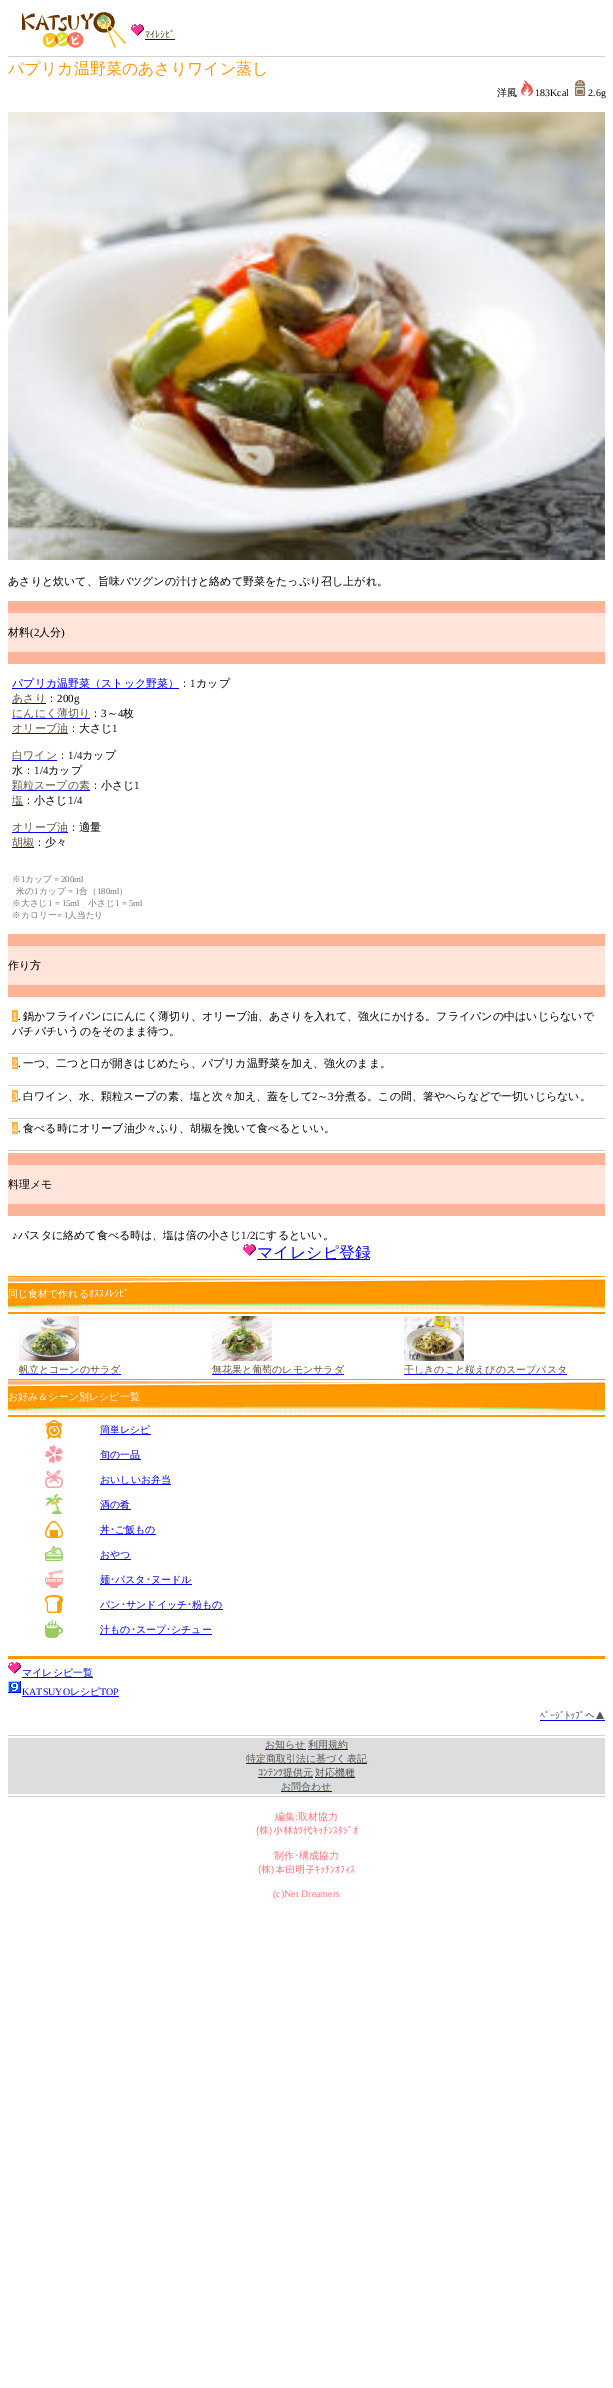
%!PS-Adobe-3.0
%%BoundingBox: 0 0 613 2388
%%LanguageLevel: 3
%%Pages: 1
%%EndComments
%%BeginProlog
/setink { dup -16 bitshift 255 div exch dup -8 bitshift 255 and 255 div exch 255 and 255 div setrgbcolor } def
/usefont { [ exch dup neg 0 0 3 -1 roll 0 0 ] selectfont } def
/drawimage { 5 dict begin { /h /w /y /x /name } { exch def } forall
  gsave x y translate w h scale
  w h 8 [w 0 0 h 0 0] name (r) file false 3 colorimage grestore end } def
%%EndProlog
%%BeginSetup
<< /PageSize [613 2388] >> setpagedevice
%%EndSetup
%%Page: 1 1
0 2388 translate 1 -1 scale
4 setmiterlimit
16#FFFFFF setink
0 0 613 2388 rectfill
(img1.raw) 22 12 104 36 drawimage
(img2.raw) 131 24 13 12 drawimage
/IPAPGothic-Regular 10 usefont
16#64533A setink
145 38 moveto (ﾏｲﾚｼﾋﾟ) show
16#0000EE setink
145 39 30 1 rectfill
16#D1D1D1 setink
8 56 597 1 rectfill
/WenQuanYiZenHei-Medium 16 usefont
16#FF9900 setink
8 74 moveto (パプリカ温野菜のあさりワイン蒸し) show
/WenQuanYiZenHei-Medium 10 usefont
16#000000 setink
497 96 moveto (洋風) show
(img3.raw) 521 80 12 16 drawimage
/LiberationSerif-Regular 10 usefont
535 96 moveto (183Kcal) show
(img4.raw) 575 80 10 16 drawimage
588 96 moveto (2.6g) show
(img5.raw) 8 112 597 448 drawimage
/WenQuanYiZenHei-Medium 11 usefont
8 585 moveto (あさりと炊いて、旨味バツグンの汁けと絡めて野菜をたっぷり召し上がれ。) show
16#FBB497 setink
8 601 597 12 rectfill
16#FFE4D9 setink
8 613 597 39 rectfill
16#000000 setink
8 636 moveto (材料) show
/LiberationSerif-Regular 11 usefont
30 636 moveto (\(2) show
/WenQuanYiZenHei-Medium 11 usefont
39 636 moveto (人分) show
/LiberationSerif-Regular 11 usefont
61 636 moveto (\)) show
16#FBB497 setink
8 652 597 12 rectfill
16#0000EE setink
12 688 167 1 rectfill
/WenQuanYiZenHei-Medium 11 usefont
16#0000FF setink
12 687 moveto (パプリカ温野菜（ストック野菜）) show
16#000000 setink
179 687 moveto (：) show
/LiberationSerif-Regular 11 usefont
190 687 moveto (1) show
/WenQuanYiZenHei-Medium 11 usefont
196 687 moveto (カップ) show
16#0000EE setink
12 703 34 1 rectfill
16#64533A setink
12 702 moveto (あさり) show
16#000000 setink
46 702 moveto (：) show
/LiberationSerif-Regular 11 usefont
57 702 moveto (200g) show
16#0000EE setink
12 718 78 1 rectfill
/WenQuanYiZenHei-Medium 11 usefont
16#64533A setink
12 717 moveto (にんにく薄切り) show
16#000000 setink
90 717 moveto (：) show
/LiberationSerif-Regular 11 usefont
101 717 moveto (3) show
/WenQuanYiZenHei-Medium 11 usefont
107 717 moveto (～) show
/LiberationSerif-Regular 11 usefont
118 717 moveto (4) show
/WenQuanYiZenHei-Medium 11 usefont
123 717 moveto (枚) show
16#0000EE setink
12 733 56 1 rectfill
16#64533A setink
12 732 moveto (オリーブ油) show
16#000000 setink
68 732 moveto (：大さじ) show
/LiberationSerif-Regular 11 usefont
112 732 moveto (1) show
16#0000EE setink
12 760 45 1 rectfill
/WenQuanYiZenHei-Medium 11 usefont
16#64533A setink
12 759 moveto (白ワイン) show
16#000000 setink
57 759 moveto (：) show
/LiberationSerif-Regular 11 usefont
68 759 moveto (1/4) show
/WenQuanYiZenHei-Medium 11 usefont
82 759 moveto (カップ) show
12 774 moveto (水：) show
/LiberationSerif-Regular 11 usefont
34 774 moveto (1/4) show
/WenQuanYiZenHei-Medium 11 usefont
48 774 moveto (カップ) show
16#0000EE setink
12 790 78 1 rectfill
16#64533A setink
12 789 moveto (顆粒スープの素) show
16#000000 setink
90 789 moveto (：小さじ) show
/LiberationSerif-Regular 11 usefont
134 789 moveto (1) show
/WenQuanYiZenHei-Medium 11 usefont
16#64533A setink
12 804 moveto (塩) show
16#0000EE setink
12 805 11 1 rectfill
16#000000 setink
23 804 moveto (：小さじ) show
/LiberationSerif-Regular 11 usefont
68 804 moveto (1/4) show
16#0000EE setink
12 832 56 1 rectfill
/WenQuanYiZenHei-Medium 11 usefont
16#64533A setink
12 831 moveto (オリーブ油) show
16#000000 setink
68 831 moveto (：適量) show
16#0000EE setink
12 847 22 1 rectfill
16#64533A setink
12 846 moveto (胡椒) show
16#000000 setink
34 846 moveto (：少々) show
/WenQuanYiZenHei-Medium 8.75 usefont
16#777777 setink
12 882 moveto (※) show
/LiberationSerif-Regular 8.75 usefont
21 882 moveto (1) show
/WenQuanYiZenHei-Medium 8.75 usefont
25 882 moveto (カップ) show
/LiberationSerif-Regular 8.75 usefont
54 882 moveto (= 200ml) show
/WenQuanYiZenHei-Medium 8.75 usefont
16 894 moveto (米の) show
/LiberationSerif-Regular 8.75 usefont
34 894 moveto (1) show
/WenQuanYiZenHei-Medium 8.75 usefont
39 894 moveto (カップ) show
/LiberationSerif-Regular 8.75 usefont
68 894 moveto (= 1) show
/WenQuanYiZenHei-Medium 8.75 usefont
79 894 moveto (合（) show
/LiberationSerif-Regular 8.75 usefont
97 894 moveto (180ml) show
/WenQuanYiZenHei-Medium 8.75 usefont
119 894 moveto (）) show
12 906 moveto (※大さじ) show
/LiberationSerif-Regular 8.75 usefont
48 906 moveto (1 = 15ml) show
/WenQuanYiZenHei-Medium 8.75 usefont
88 906 moveto (小さじ) show
/LiberationSerif-Regular 8.75 usefont
115 906 moveto (1 = 5ml) show
/WenQuanYiZenHei-Medium 8.75 usefont
12 918 moveto (※カロリー) show
/LiberationSerif-Regular 8.75 usefont
57 918 moveto (= 1) show
/WenQuanYiZenHei-Medium 8.75 usefont
68 918 moveto (人当たり) show
16#FBB497 setink
8 934 597 12 rectfill
16#FFE4D9 setink
8 946 597 39 rectfill
/WenQuanYiZenHei-Medium 11 usefont
16#000000 setink
8 969 moveto (作り方) show
16#FBB497 setink
8 985 597 12 rectfill
16#FFB340 setink
12 1010 6 12 rectfill
/LiberationSerif-Regular 11 usefont
16#FFFFFF setink
12 1020 moveto (1) show
16#000000 setink
18 1020 moveto (.) show
/WenQuanYiZenHei-Medium 11 usefont
23 1020 moveto (鍋かフライパンににんにく薄切り、オリーブ油、あさりを入れて、強火にかける。フライパンの中はいじらないで) show
12 1035 moveto (パチパチいうのをそのまま待つ。) show
16#D1D1D1 setink
8 1053 597 1 rectfill
16#FFB340 setink
12 1057 6 12 rectfill
/LiberationSerif-Regular 11 usefont
16#FFFFFF setink
12 1067 moveto (2) show
16#000000 setink
18 1067 moveto (.) show
/WenQuanYiZenHei-Medium 11 usefont
23 1067 moveto (一つ、二つと口が開きはじめたら、パプリカ温野菜を加え、強火のまま。) show
16#D1D1D1 setink
8 1085 597 1 rectfill
16#FFB340 setink
12 1090 6 12 rectfill
/LiberationSerif-Regular 11 usefont
16#FFFFFF setink
12 1100 moveto (3) show
/WenQuanYiZenHei-Medium 11 usefont
16#000000 setink
23 1100 moveto (白ワイン、水、顆粒スープの素、塩と次々加え、蓋をして) show
/LiberationSerif-Regular 11 usefont
312 1100 moveto (2) show
/WenQuanYiZenHei-Medium 11 usefont
317 1100 moveto (～) show
/LiberationSerif-Regular 11 usefont
328 1100 moveto (3) show
/WenQuanYiZenHei-Medium 11 usefont
334 1100 moveto (分煮る。この間、箸やへらなどで一切いじらない。) show
/LiberationSerif-Regular 11 usefont
18 1100 moveto (.) show
16#D1D1D1 setink
8 1118 597 1 rectfill
16#FFB340 setink
12 1122 6 12 rectfill
16#FFFFFF setink
12 1132 moveto (4) show
16#000000 setink
18 1132 moveto (.) show
/WenQuanYiZenHei-Medium 11 usefont
23 1132 moveto (食べる時にオリーブ油少々ふり、胡椒を挽いて食べるといい。) show
[
    [8 1150 597 1 16#D1D1D1]
    [8 1153 597 12 16#FBB497]
    [8 1165 597 39 16#FFE4D9]
] { aload pop setink rectfill } forall
16#000000 setink
8 1188 moveto (料理メモ) show
16#FBB497 setink
8 1204 597 12 rectfill
/LiberationSerif-Regular 11 usefont
16#000000 setink
12 1239 moveto (♪) show
/WenQuanYiZenHei-Medium 11 usefont
18 1239 moveto (パスタに絡めて食べる時は、塩は倍の小さじ) show
/LiberationSerif-Regular 11 usefont
241 1239 moveto (1/2) show
/WenQuanYiZenHei-Medium 11 usefont
255 1239 moveto (にするといい。) show
(img2.raw) 243 1244 13 12 drawimage
16#0000EE setink
257 1259 113 1 rectfill
/WenQuanYiZenHei-Medium 16 usefont
257 1258 moveto (マイレシピ登録) show
16#FF9900 setink
8 1276 597 38 rectfill
(img6.raw) 8 1277 597 8 drawimage
/WenQuanYiZenHei-Medium 10 usefont
16#FFFFFF setink
8 1297 moveto (同じ食材で作れる) show
/IPAPGothic-Regular 10 usefont
89 1297 moveto (ｵｽｽﾒﾚｼﾋﾟ) show
(img7.raw) 8 1303 597 9 drawimage
(img8.raw) 19 1316 60 45 drawimage
16#0000EE setink
19 1374 102 1 rectfill
/WenQuanYiZenHei-Medium 10 usefont
16#64533A setink
19 1373 moveto (帆立とコーンのサラダ) show
(img9.raw) 212 1316 60 45 drawimage
16#0000EE setink
212 1374 132 1 rectfill
16#64533A setink
212 1373 moveto (無花果と葡萄のレモンサラダ) show
(img10.raw) 404 1316 60 45 drawimage
16#0000EE setink
404 1374 163 1 rectfill
16#64533A setink
404 1373 moveto (干しきのこと桜えびのスープパスタ) show
16#FF9900 setink
8 1379 597 38 rectfill
(img6.raw) 8 1380 597 8 drawimage
16#FFFFFF setink
8 1400 moveto (お好み＆シーン別レシピ一覧) show
(img7.raw) 8 1406 597 9 drawimage
(img11.raw) 46 1420 16 19 drawimage
16#0000EE setink
100 1434 51 1 rectfill
100 1433 moveto (簡単レシピ) show
(img12.raw) 45 1445 18 18 drawimage
100 1459 41 1 rectfill
100 1458 moveto (旬の一品) show
(img13.raw) 45 1470 18 18 drawimage
100 1484 71 1 rectfill
100 1483 moveto (おいしいお弁当) show
(img14.raw) 45 1494 19 20 drawimage
100 1509 31 1 rectfill
100 1508 moveto (酒の肴) show
(img15.raw) 45 1521 18 17 drawimage
100 1534 56 1 rectfill
100 1533 moveto (丼) show
/IPAPGothic-Regular 10 usefont
110 1533 moveto (･) show
/WenQuanYiZenHei-Medium 10 usefont
115 1533 moveto (ご飯もの) show
(img16.raw) 45 1546 18 15 drawimage
100 1559 31 1 rectfill
100 1558 moveto (おやつ) show
(img17.raw) 45 1570 18 18 drawimage
100 1584 92 1 rectfill
100 1583 moveto (麺) show
/IPAPGothic-Regular 10 usefont
110 1583 moveto (･) show
/WenQuanYiZenHei-Medium 10 usefont
115 1583 moveto (パスタ) show
/IPAPGothic-Regular 10 usefont
146 1583 moveto (･) show
/WenQuanYiZenHei-Medium 10 usefont
151 1583 moveto (ヌードル) show
(img18.raw) 45 1595 18 18 drawimage
100 1608 moveto (パン) show
/IPAPGothic-Regular 10 usefont
121 1608 moveto (･) show
100 1609 123 1 rectfill
/WenQuanYiZenHei-Medium 10 usefont
126 1608 moveto (サンドイッチ) show
/IPAPGothic-Regular 10 usefont
187 1608 moveto (･) show
/WenQuanYiZenHei-Medium 10 usefont
192 1608 moveto (粉もの) show
(img19.raw) 45 1620 18 18 drawimage
100 1634 112 1 rectfill
100 1633 moveto (汁もの) show
/IPAPGothic-Regular 10 usefont
131 1633 moveto (･) show
/WenQuanYiZenHei-Medium 10 usefont
136 1633 moveto (スープ) show
/IPAPGothic-Regular 10 usefont
166 1633 moveto (･) show
/WenQuanYiZenHei-Medium 10 usefont
171 1633 moveto (シチュー) show
16#FF9900 setink
8 1656 597 3 rectfill
(img2.raw) 8 1662 13 12 drawimage
16#0000EE setink
22 1677 71 1 rectfill
22 1676 moveto (マイレシピ一覧) show
(img20.raw) 8 1681 13 12 drawimage
/LiberationSerif-Regular 10 usefont
22 1695 moveto (KATSUYO) show
22 1696 97 1 rectfill
/WenQuanYiZenHei-Medium 10 usefont
70 1695 moveto (レシピ) show
/LiberationSerif-Regular 10 usefont
100 1695 moveto (TOP) show
/IPAPGothic-Regular 10 usefont
16#555555 setink
540 1719 moveto (ﾍﾟｰｼﾞﾄｯﾌﾟへ▲) show
[
    [540 1720 65 1 16#0000EE]
    [8 1735 597 1 16#D1D1D1]
    [8 1738 597 56 16#DDDDDD]
    [265 1749 41 1 16#0000EE]
] { aload pop setink rectfill } forall
/WenQuanYiZenHei-Medium 10 usefont
16#555555 setink
265 1748 moveto (お知らせ) show
16#0000EE setink
308 1749 40 1 rectfill
16#555555 setink
308 1748 moveto (利用規約) show
16#0000EE setink
246 1763 121 1 rectfill
16#555555 setink
246 1762 moveto (特定商取引法に基づく表記) show
/IPAPGothic-Regular 10 usefont
258 1776 moveto (ｺﾝﾃﾝﾂ) show
16#0000EE setink
258 1777 55 1 rectfill
/WenQuanYiZenHei-Medium 10 usefont
16#555555 setink
283 1776 moveto (提供元) show
16#0000EE setink
315 1777 40 1 rectfill
16#555555 setink
315 1776 moveto (対応機種) show
16#0000EE setink
281 1791 51 1 rectfill
16#555555 setink
281 1790 moveto (お問合わせ) show
16#D1D1D1 setink
8 1796 597 1 rectfill
16#FF757E setink
275 1820 moveto (編集 取材協力) show
/LiberationSerif-Regular 10 usefont
295 1820 moveto (:) show
/IPAPGothic-Regular 10 usefont
256 1834 moveto (\(株\)小林ｶﾂ代ｷｯﾁﾝｽﾀｼﾞｵ) show
/WenQuanYiZenHei-Medium 10 usefont
274 1859 moveto (制作) show
/IPAPGothic-Regular 10 usefont
294 1859 moveto (･) show
/WenQuanYiZenHei-Medium 10 usefont
299 1859 moveto (構成協力) show
/IPAPGothic-Regular 10 usefont
258 1873 moveto (\(株\)本田明子ｷｯﾁﾝｵﾌｨｽ) show
/LiberationSerif-Regular 10 usefont
273 1897 moveto (\(c\)Net Dreamers) show
showpage
%%EOF
